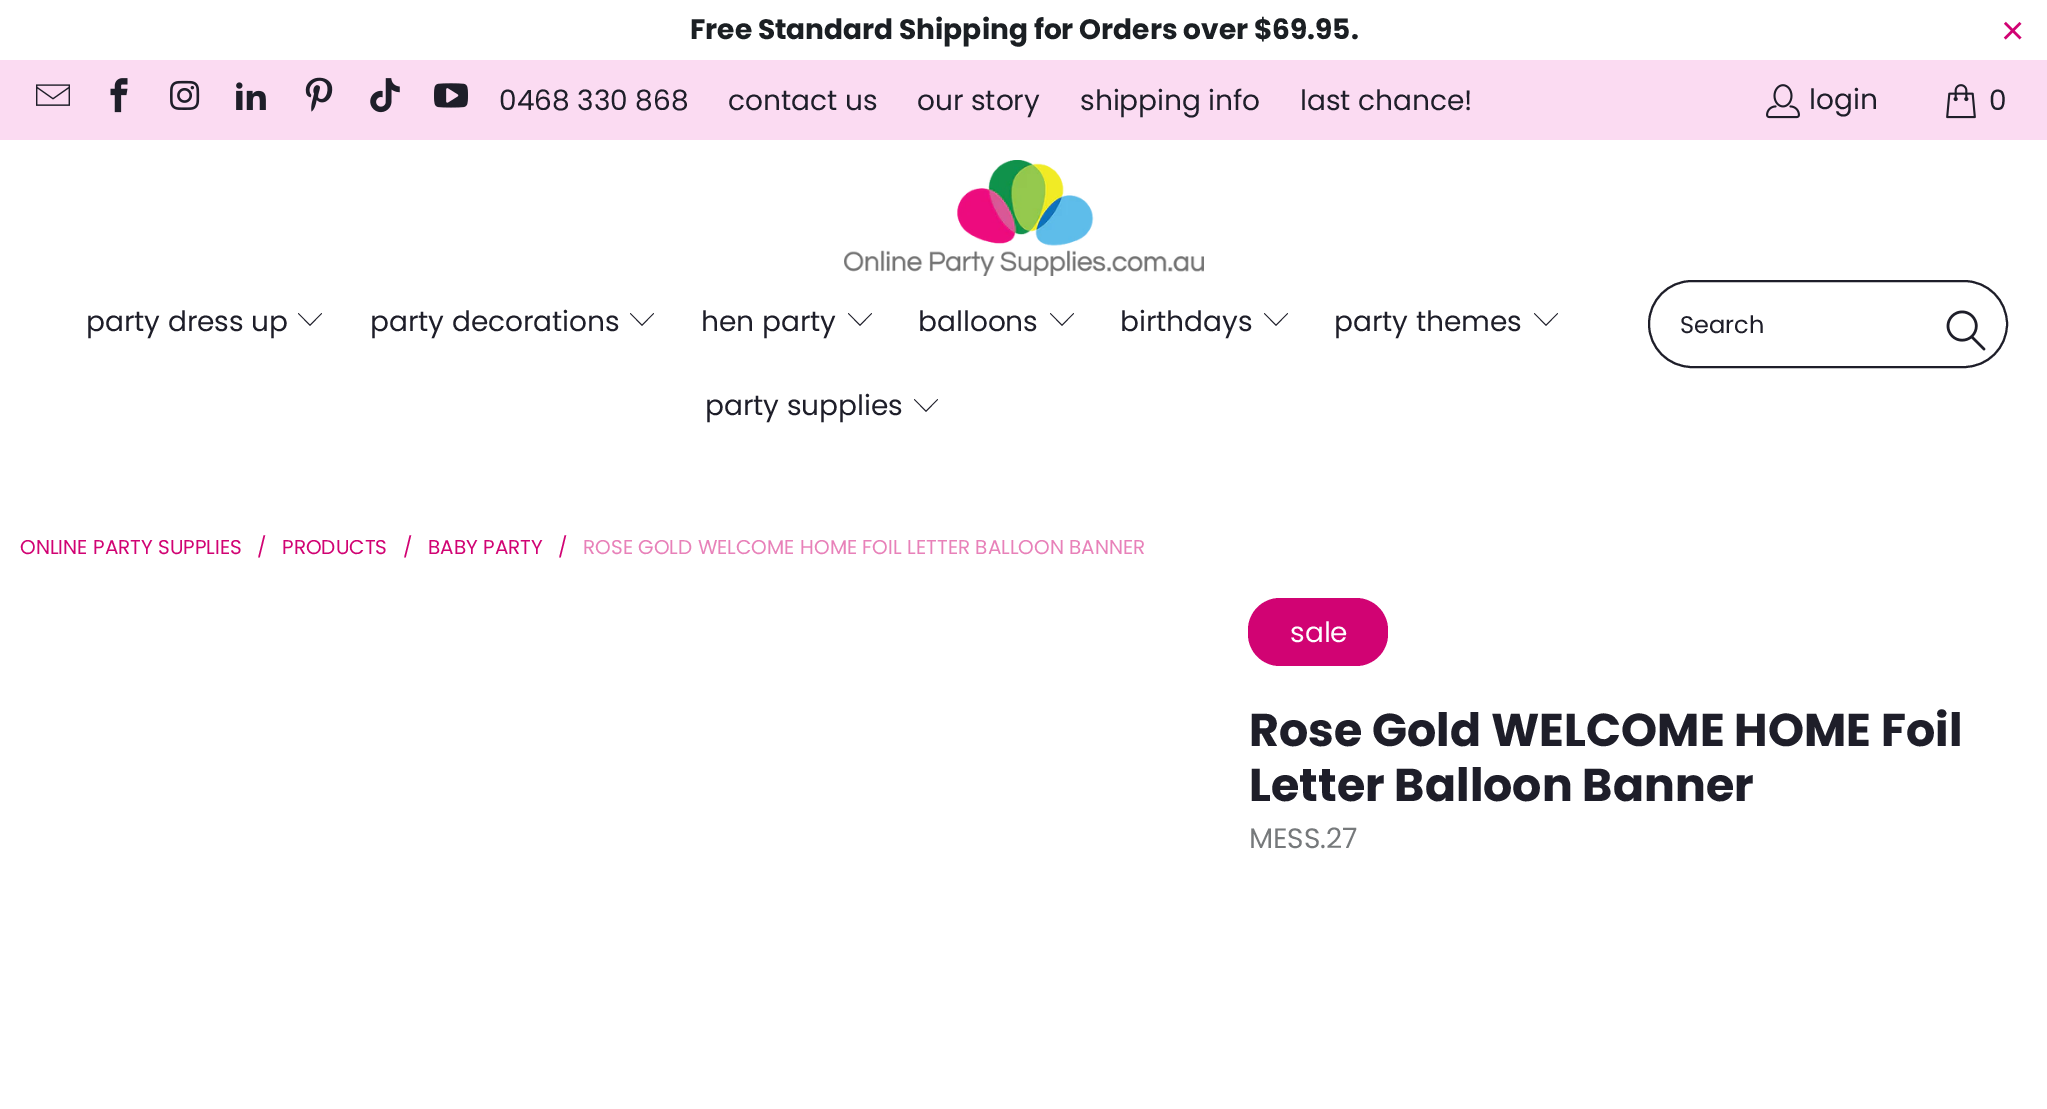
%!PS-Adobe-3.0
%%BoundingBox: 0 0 2047 1109
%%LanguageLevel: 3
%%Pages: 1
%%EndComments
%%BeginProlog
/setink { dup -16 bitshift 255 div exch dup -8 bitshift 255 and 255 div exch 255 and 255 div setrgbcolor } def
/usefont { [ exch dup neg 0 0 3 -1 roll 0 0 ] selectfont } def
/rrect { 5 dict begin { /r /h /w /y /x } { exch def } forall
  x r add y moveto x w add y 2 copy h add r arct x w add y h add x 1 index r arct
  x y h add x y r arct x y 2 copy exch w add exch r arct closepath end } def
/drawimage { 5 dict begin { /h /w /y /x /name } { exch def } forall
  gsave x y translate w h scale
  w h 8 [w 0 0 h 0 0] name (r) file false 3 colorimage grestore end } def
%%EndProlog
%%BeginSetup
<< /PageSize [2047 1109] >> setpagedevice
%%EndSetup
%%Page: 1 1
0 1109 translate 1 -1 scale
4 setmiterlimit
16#FFFFFF setink
0 0 2047 1109 rectfill
/Poppins-Bold 28 usefont
16#1B1F23 setink
690 39 moveto (Free Standard Shipping for Orders over $69.95.) show
/LiberationSans-Regular 40 usefont
16#D10373 setink
2001 44 moveto (×) show
16#FBDBF2 setink
0 60 2047 80 rectfill
(img1.raw) 36 84 34 22 drawimage
(img2.raw) 110 78 18 35 drawimage
(img3.raw) 170 80 30 30 drawimage
(img4.raw) 236 82 30 28 drawimage
(img5.raw) 305 77 28 35 drawimage
(img6.raw) 370 78 30 35 drawimage
(img7.raw) 434 83 34 25 drawimage
/Poppins-Regular 28 usefont
16#1E1E29 setink
[
    [(0468 330 868) 499 110]
    [(contact us) 728 110]
    [(our story) 917 110]
    [(shipping info) 1080 110]
    [(last chance!) 1300 110]
] { aload pop moveto show } forall
(img8.raw) 1766 84 34 35 drawimage
1809 109 moveto (login) show
(img9.raw) 1946 84 30 35 drawimage
1989 110 moveto (0) show
(img10.raw) 844 160 360 116 drawimage
86 331 moveto (party dress up) show
310 326 moveto 298 313.5 lineto 298.5 313 lineto 310 324.5 lineto 321.5 313 lineto 322 313.5 lineto closepath fill
370 331 moveto (party decorations) show
642 326 moveto 630 313.5 lineto 630.5 313 lineto 642 324.5 lineto 653.5 313 lineto 654 313.5 lineto closepath fill
701 331 moveto (hen party) show
860 326 moveto 848 313.5 lineto 848.5 313 lineto 860 324.5 lineto 871.5 313 lineto 872 313.5 lineto closepath fill
918 331 moveto (balloons) show
1062 326 moveto 1050 313.5 lineto 1050.5 313 lineto 1062 324.5 lineto 1073.5 313 lineto 1074 313.5 lineto closepath fill
1120 331 moveto (birthdays) show
1276 326 moveto 1264 313.5 lineto 1264.5 313 lineto 1276 324.5 lineto 1287.5 313 lineto 1288 313.5 lineto closepath fill
1334 331 moveto (party themes) show
1546 326 moveto 1534 313.5 lineto 1534.5 313 lineto 1546 324.5 lineto 1557.5 313 lineto 1558 313.5 lineto closepath fill
705 415 moveto (party supplies) show
926 412 moveto 914 399.5 lineto 914.5 399 lineto 926 410.5 lineto 937.5 399 lineto 938 399.5 lineto closepath fill
2 setlinewidth
1649 281 358 86 43 rrect stroke
/Poppins-Regular 24 usefont
1680 333 moveto (Search) show
(img11.raw) 1946 310 40 41 drawimage
/Poppins-Regular 20 usefont
16#D10373 setink
[
    [(ONLINE PARTY SUPPLIES) 20 554]
    [(/) 257 554]
    [(PRODUCTS) 282 554]
    [(/) 403 554]
    [(BABY PARTY) 428 554]
    [(/) 558 554]
] { aload pop moveto show } forall
16#E881B9 setink
583 554 moveto (ROSE GOLD WELCOME HOME FOIL LETTER BALLOON BANNER) show
16#D10373 setink
1248 598 140 68 32 rrect fill
/Poppins-Regular 28 usefont
16#FFFFFF setink
1290 642 moveto (sale) show
/Poppins-Bold 46 usefont
16#1E1E29 setink
1249 746 moveto (Rose Gold WELCOME HOME Foil) show
1249 801 moveto (Letter Balloon Banner) show
/Poppins-Regular 28 usefont
16#76797B setink
1249 848 moveto (MESS.27) show
showpage
%%EOF
